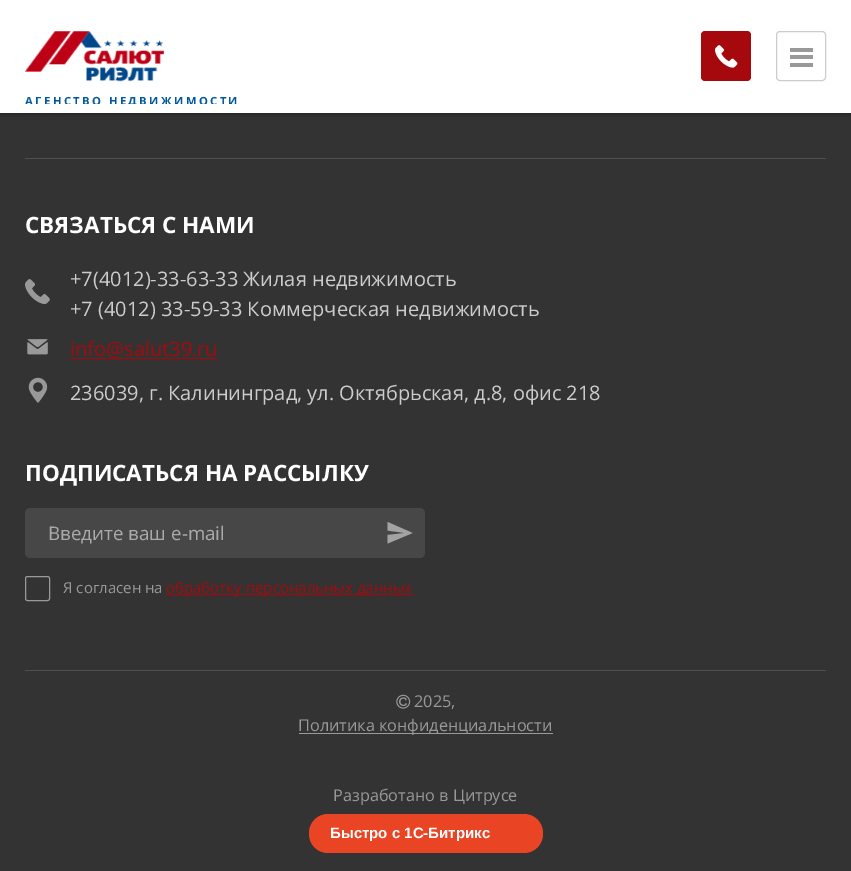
%!PS-Adobe-3.0
%%BoundingBox: 0 0 851 871
%%LanguageLevel: 3
%%Pages: 1
%%EndComments
%%BeginProlog
/setink { dup -16 bitshift 255 div exch dup -8 bitshift 255 and 255 div exch 255 and 255 div setrgbcolor } def
/usefont { [ exch dup neg 0 0 3 -1 roll 0 0 ] selectfont } def
/setalpha { dup .setfillconstantalpha .setstrokeconstantalpha } def
/rrect { 5 dict begin { /r /h /w /y /x } { exch def } forall
  x r add y moveto x w add y 2 copy h add r arct x w add y h add x 1 index r arct
  x y h add x y r arct x y 2 copy exch w add exch r arct closepath end } def
/softshadow { 12 dict begin { /a /b /q /h /w /y /x } { exch def } forall gsave /was 0 def
  9 -2 -9 { dup b mul 4 div /e exch def 1 sub .425 mul 2.718 exch exp 1 add a .99 .min exch div /now exch def
    1 1 now sub 1 was sub div sub setalpha /was now def
    w h .min e 2 mul add 0 gt { x e sub y e sub w e 2 mul add h e 2 mul add
      q e add b .6 mul add w h .min 2 div e add .min 0 .max rrect fill } if } for grestore end } def
/drawimage { 5 dict begin { /h /w /y /x /name } { exch def } forall
  gsave x y translate w h scale
  w h 8 [w 0 0 h 0 0] name (r) file false 3 colorimage grestore end } def
%%EndProlog
%%BeginSetup
<< /PageSize [851 871] /PageUsesTransparency true >> setpagedevice
%%EndSetup
%%Page: 1 1
0 .pushpdf14devicefilter
0 871 translate 1 -1 scale
4 setmiterlimit
16#333333 setink
0 0 851 871 rectfill
16#000000 setink
0 0 851 113 0 3 0.5 softshadow
16#FFFFFF setink
0 0 851 113 rectfill
16#A6090D setink
701 31 50 50 4 rrect fill
(img1.raw) 715 45 23 23 drawimage
16#CCCCCC setink
776.5 31.5 49 49 3.5 rrect stroke
[
    [790 55 23 4 16#999999]
    [790 48 23 4 16#999999]
    [790 63 23 4 16#999999]
] { aload pop setink rectfill } forall
(img2.raw) 25 31 139 51 drawimage
gsave
25 9 404 95 rectclip
/OpenSans-Bold 11.25 usefont
16#00599C setink
25 105 moveto 2.4 0 (АГЕНСТВО НЕДВИЖИМОСТИ) ashow
grestore
16#4F4E49 setink
25 158 801 1 rectfill
/OpenSans-Bold 22.5 usefont
16#FFFFFF setink
25 233 moveto (СВЯЗАТЬСЯ С НАМИ) show
(img3.raw) 25 279 25 26 drawimage
/OpenSans-Regular 20 usefont
16#CCCCCC setink
70 286 moveto (+7\(4012\)-33-63-33 Жилая недвижимость) show
70 316 moveto (+7 \(4012\) 33-59-33 Коммерческая недвижимость) show
(img4.raw) 27 339 21 16 drawimage
16#A6090D setink
70 356 moveto (info@salut39.ru) show
70 358 148 1 rectfill
(img5.raw) 28 377 20 26 drawimage
16#CCCCCC setink
70 400 moveto (236039, г. Калининград, ул. Октябрьская, д.8, офис 218) show
/OpenSans-Bold 22.5 usefont
16#FFFFFF setink
25 481 moveto (ПОДПИСАТЬСЯ НА РАССЫЛКУ) show
16#474747 setink
25 508 400 50 5 rrect fill
/OpenSans-Regular 18.75 usefont
16#AAAAAA setink
48 540 moveto (Введите ваш e-mail) show
16#A3A3A3 setink
387.5 543.5 moveto 412.5 533 lineto 387.5 522 lineto 387.5 530.5 lineto 405.5 533 lineto 387.5 535 lineto closepath fill
16#999999 setink
25.5 576.5 24 24 2 rrect stroke
/OpenSans-Regular 15 usefont
63 593 moveto (Я согласен на) show
16#A6090D setink
166 594 247 1 rectfill
166 593 moveto (обработку персональных данных) show
16#4F4E49 setink
25 670 801 1 rectfill
(img6.raw) 396 694 15 15 drawimage
/OpenSans-Regular 16.25 usefont
16#999999 setink
414 707 moveto (2025,) show
16#9A9A9A setink
299 733 254 1 rectfill
16#999999 setink
298 731 moveto (Политика конфиденциальности) show
333 801 moveto (Разработано в Цитрусе) show
16#E94524 setink
309 814 234 39 19 rrect fill
/LiberationSans-Bold 15 usefont
16#FFFFFF setink
330 838 moveto (Быстро с 1С-Битрикс) show
.poppdf14devicefilter showpage
%%EOF
